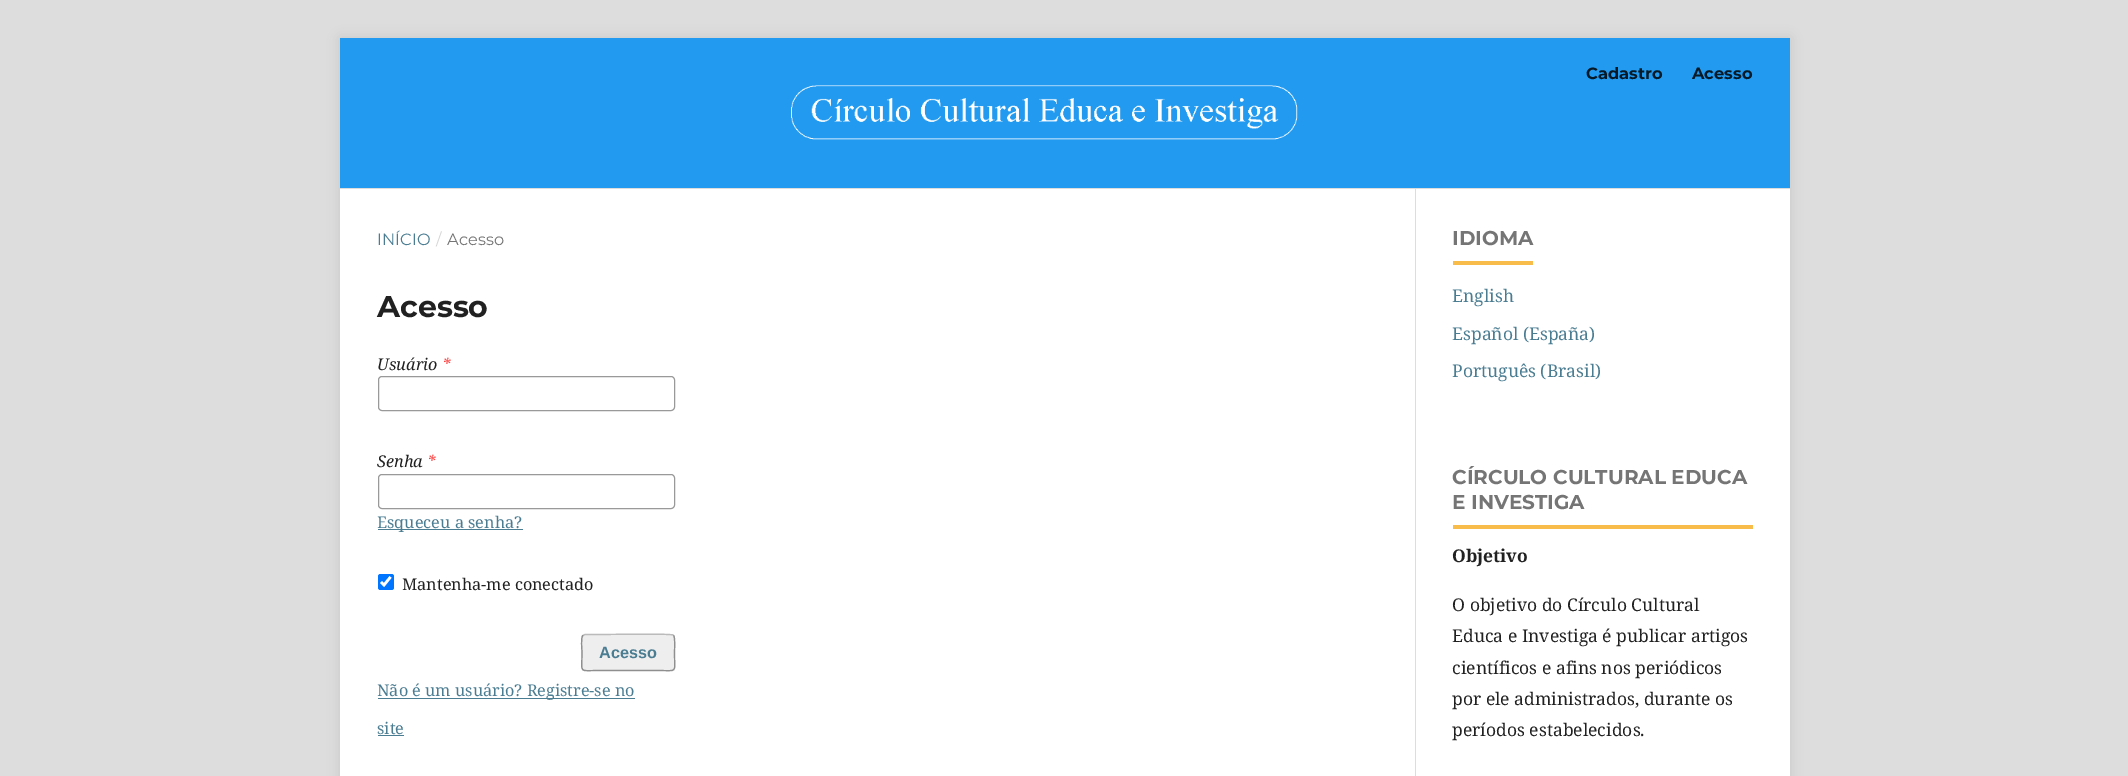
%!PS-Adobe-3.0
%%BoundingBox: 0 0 2128 776
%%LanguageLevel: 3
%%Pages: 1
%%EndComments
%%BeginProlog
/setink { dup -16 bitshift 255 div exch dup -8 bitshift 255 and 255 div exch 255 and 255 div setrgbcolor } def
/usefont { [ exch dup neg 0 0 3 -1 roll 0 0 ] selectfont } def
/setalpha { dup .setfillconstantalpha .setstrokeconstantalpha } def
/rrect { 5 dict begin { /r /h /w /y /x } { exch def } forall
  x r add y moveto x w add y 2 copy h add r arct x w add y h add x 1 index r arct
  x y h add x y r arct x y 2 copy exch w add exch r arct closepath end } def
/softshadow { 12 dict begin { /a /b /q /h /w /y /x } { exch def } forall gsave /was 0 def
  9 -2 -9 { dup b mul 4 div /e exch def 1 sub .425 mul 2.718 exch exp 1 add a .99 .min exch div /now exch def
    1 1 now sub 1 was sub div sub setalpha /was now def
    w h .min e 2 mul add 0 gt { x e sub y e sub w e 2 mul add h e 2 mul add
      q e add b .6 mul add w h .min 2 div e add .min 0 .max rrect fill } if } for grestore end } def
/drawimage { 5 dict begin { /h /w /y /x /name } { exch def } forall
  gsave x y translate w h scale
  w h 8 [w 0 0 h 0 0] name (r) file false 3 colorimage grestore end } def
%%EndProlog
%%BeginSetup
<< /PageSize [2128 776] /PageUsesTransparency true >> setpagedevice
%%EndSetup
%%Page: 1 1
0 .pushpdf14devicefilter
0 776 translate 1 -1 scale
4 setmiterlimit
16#DDDDDD setink
0 0 2128 776 rectfill
16#000000 setink
340 38 1450 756 0 6 0.1 softshadow
[
    [340 189 1450 587 16#FFFFFF]
    [340 38 1450 150 16#229AF0]
    [340 188 1450 1 16#DDDDDD]
] { aload pop setink rectfill } forall
/Montserrat-Bold 16.25 usefont
16#051926 setink
1586 79 moveto (Cadastro) show
1692 79 moveto (Acesso) show
(img1.raw) 791 85 507 55 drawimage
/Montserrat-Regular 16.25 usefont
16#4B7D92 setink
377 245 moveto (INÍCIO) show
16#D6D6D6 setink
436 245 moveto (/) show
16#757575 setink
447 245 moveto (Acesso) show
/Montserrat-Bold 30 usefont
16#212121 setink
377 317 moveto (Acesso) show
/NotoSerif-Italic 16.25 usefont
377 370 moveto (Usuário) show
16#FF4040 setink
442 370 moveto (*) show
16#999999 setink
378.5 376.5 296 34 3.5 rrect stroke
16#212121 setink
377 467 moveto (Senha) show
16#FF4040 setink
427 467 moveto (*) show
16#999999 setink
378.5 474.5 296 34 3.5 rrect stroke
16#4B7D92 setink
378 529 145 1 rectfill
/NotoSerif-Regular 16.25 usefont
377 528 moveto (Esqueceu a senha?) show
16#0075FF setink
378 574 16 16 2.5 rrect fill
16#FFFFFF setink
2.6 setlinewidth
381 582 moveto 384 585 lineto 390.5 577 lineto stroke
16#212121 setink
402 590 moveto (Mantenha-me conectado) show
16#EEEEEE setink
581 634 94 37 4 rrect fill
16#BBBBBB setink
1.2 setlinewidth
583 635.5 moveto 585 634.5 lineto 599.5 634.5 lineto 607.5 634.5 671 633.5 673 635 curveto 673.5 635.5 lineto stroke
0.4 setalpha
16#000000 setink
673.5 635.5 moveto 675.5 637.5 674.5 649.5 674.5 652.5 curveto 674.5 674 678.5 670.5 657 670.5 curveto 599.5 670.5 lineto 578 670.5 582 674 582 652.5 curveto 582 649.5 580.5 637.5 583 635.5 curveto stroke
/LiberationSans-Bold 16.25 usefont
1 setalpha
16#4B7D92 setink
599 658 moveto (Acesso) show
378 698 257 1 rectfill
/NotoSerif-Regular 16.25 usefont
377 696 moveto (Não é um usuário? Registre-se no) show
377 734 moveto (site) show
[
    [378 735 26 1 16#4B7D92]
    [1415 189 1 587 16#DDDDDD]
    [1453 261 80 4 16#F7BC4A]
] { aload pop setink rectfill } forall
/Montserrat-Bold 20 usefont
16#757575 setink
1452 245 moveto (IDIOMA) show
/NotoSerif-Regular 17.5 usefont
16#4B7D92 setink
[
    [(English) 1452 302]
    [(Español \(España\)) 1452 340]
    [(Português \(Brasil\)) 1452 377]
] { aload pop moveto show } forall
16#F7BC4A setink
1453 525 300 4 rectfill
/Montserrat-Bold 20 usefont
16#757575 setink
1452 484 moveto (CÍRCULO CULTURAL EDUCA) show
1452 509 moveto (E INVESTIGA) show
/NotoSerif-Bold 17.5 usefont
16#212121 setink
1452 562 moveto (Objetivo) show
/NotoSerif-Regular 17.5 usefont
[
    [(O objetivo do Círculo Cultural) 1452 611]
    [(Educa e Investiga é publicar artigos) 1452 642]
    [(científicos e afins nos periódicos) 1452 674]
    [(por ele administrados, durante os) 1452 705]
    [(períodos estabelecidos.) 1452 736]
] { aload pop moveto show } forall
.poppdf14devicefilter showpage
%%EOF
